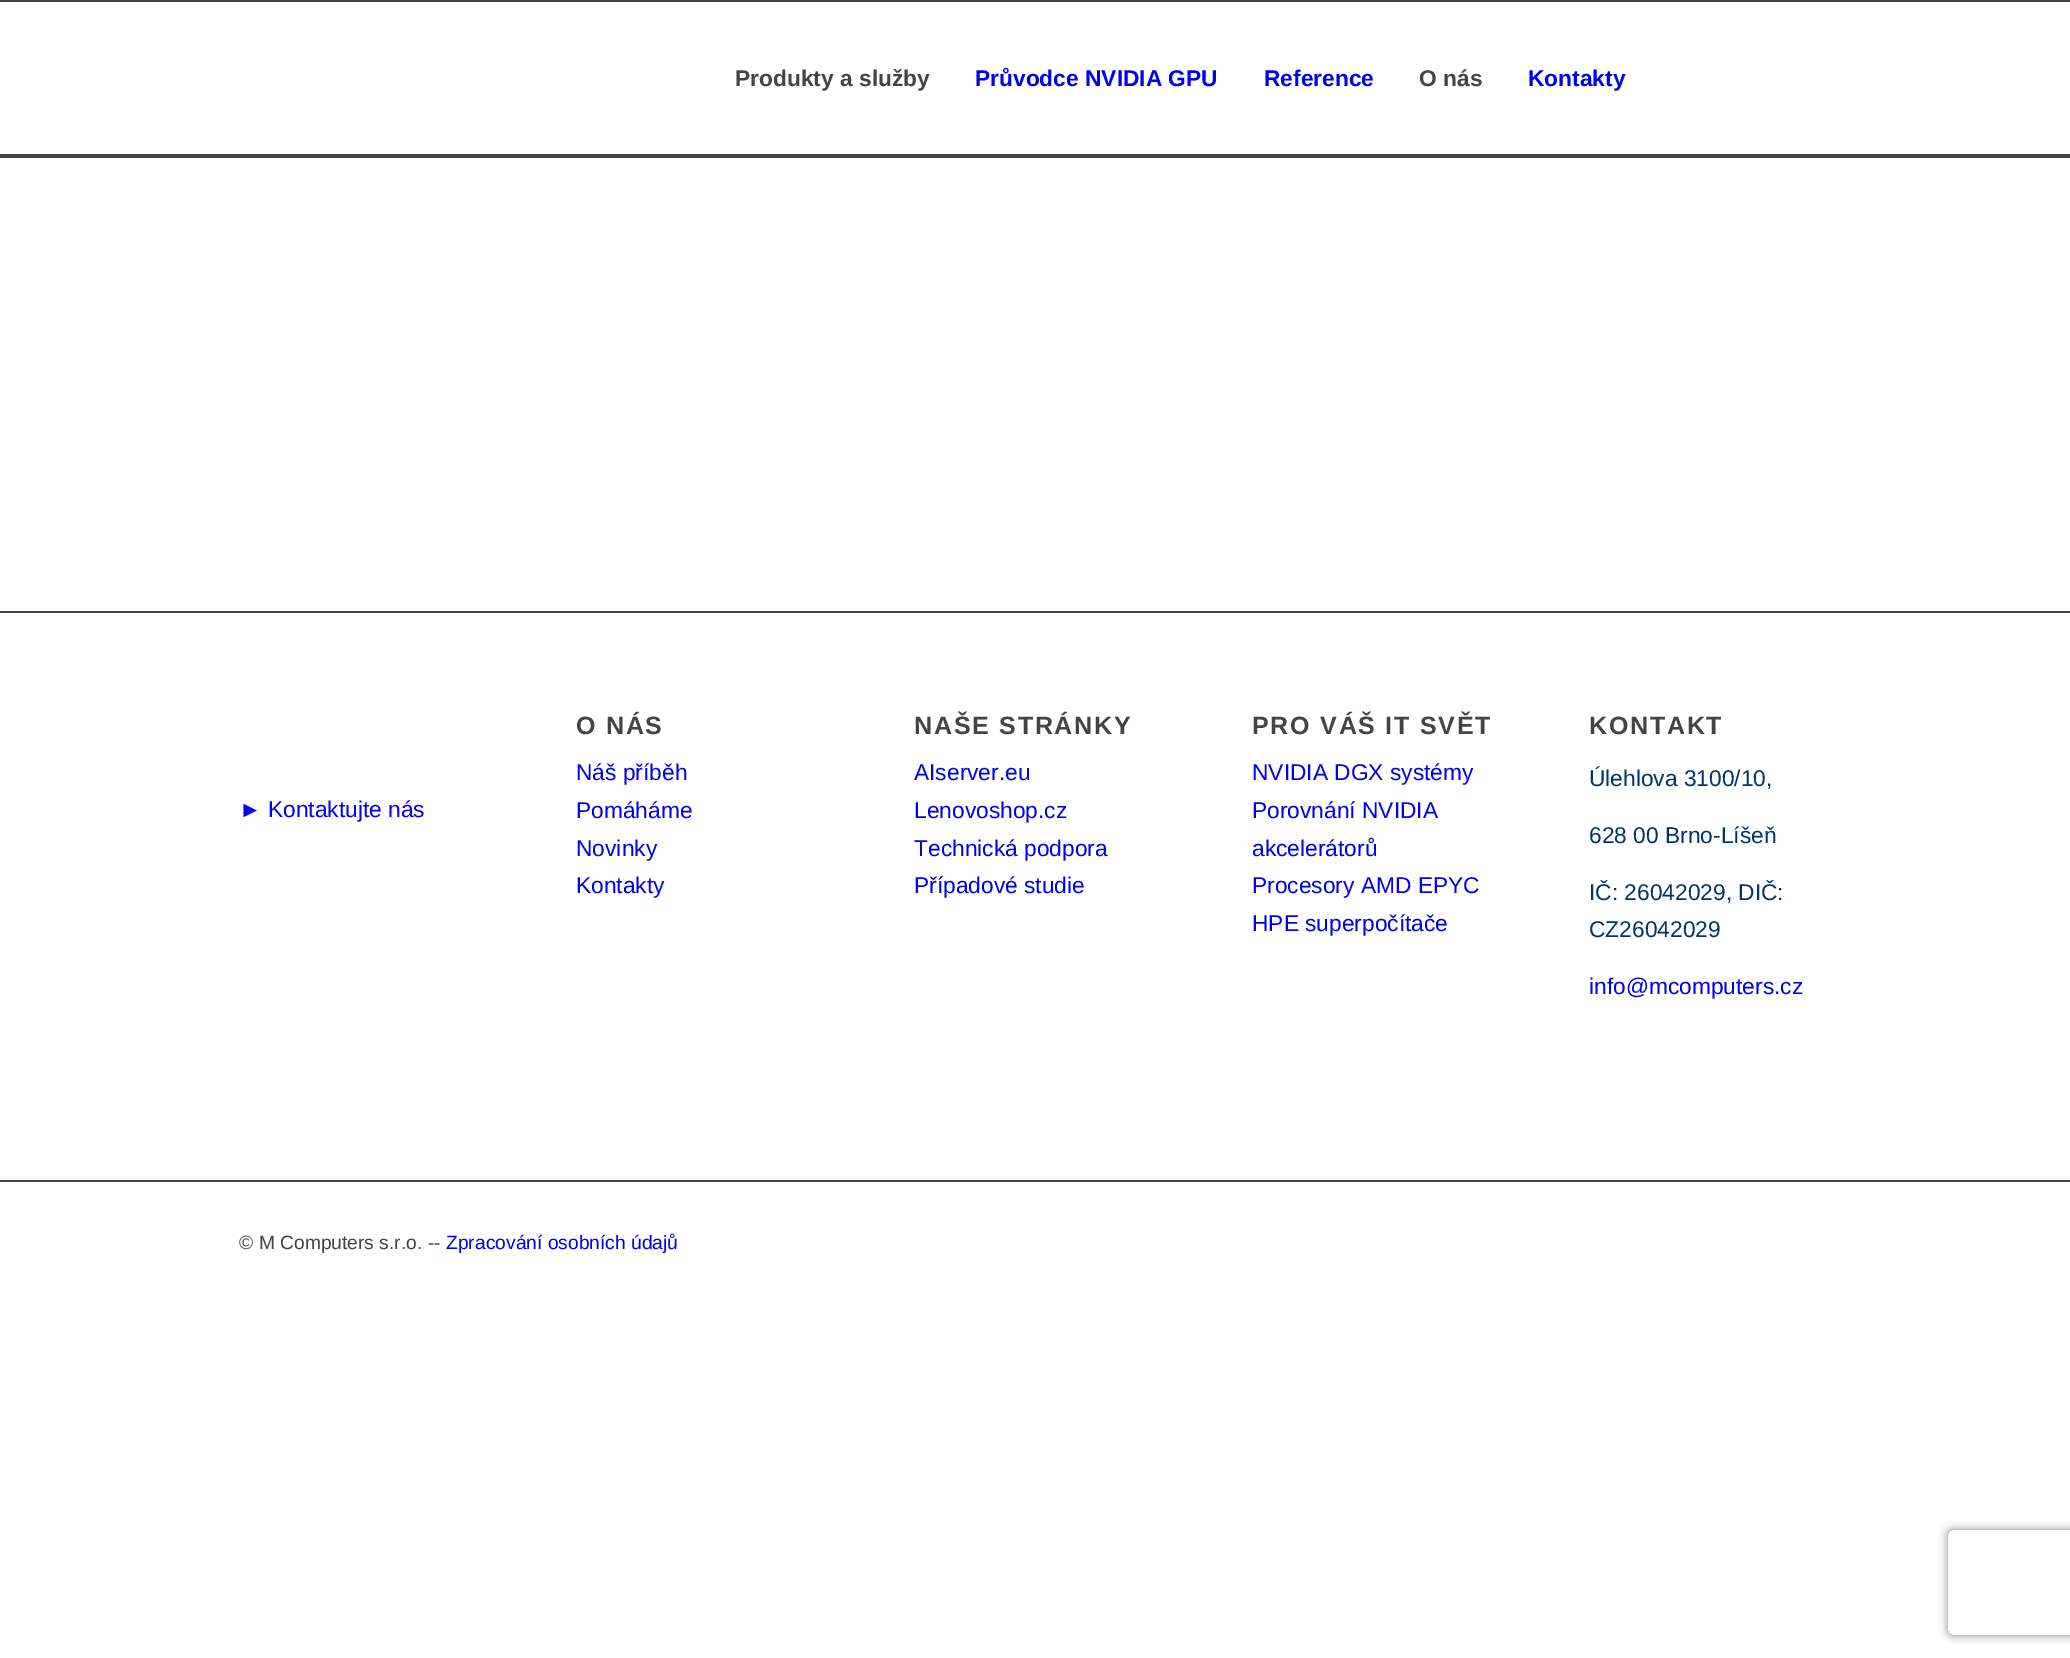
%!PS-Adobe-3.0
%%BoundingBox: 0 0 2070 1658
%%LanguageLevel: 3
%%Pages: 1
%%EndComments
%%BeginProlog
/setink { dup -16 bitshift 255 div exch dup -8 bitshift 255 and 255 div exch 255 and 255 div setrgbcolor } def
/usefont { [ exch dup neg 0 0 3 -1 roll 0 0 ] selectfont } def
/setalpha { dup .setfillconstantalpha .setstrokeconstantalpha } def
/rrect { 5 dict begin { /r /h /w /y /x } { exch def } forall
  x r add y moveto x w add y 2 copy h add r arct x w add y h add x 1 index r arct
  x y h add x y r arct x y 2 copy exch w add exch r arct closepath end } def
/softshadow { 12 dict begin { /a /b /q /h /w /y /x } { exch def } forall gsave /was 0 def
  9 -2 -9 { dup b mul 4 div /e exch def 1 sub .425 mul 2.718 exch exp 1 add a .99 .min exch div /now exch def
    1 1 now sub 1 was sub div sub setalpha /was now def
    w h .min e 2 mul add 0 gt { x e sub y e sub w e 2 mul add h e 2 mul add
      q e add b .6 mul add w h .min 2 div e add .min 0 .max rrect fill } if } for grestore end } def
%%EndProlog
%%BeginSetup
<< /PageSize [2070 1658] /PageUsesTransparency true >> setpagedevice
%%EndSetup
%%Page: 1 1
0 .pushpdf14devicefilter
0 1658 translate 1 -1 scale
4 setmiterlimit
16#FFFFFF setink
0 0 2070 1658 rectfill
16#444444 setink
0 0 2070 2 rectfill
/LiberationSans-Bold 22.75 usefont
735 86 moveto (Produkty a služby) show
16#0000EE setink
975 86 moveto (Průvodce NVIDIA GPU) show
1264 86 moveto (Reference) show
16#444444 setink
1419 86 moveto (O nás) show
16#0000EE setink
1528 86 moveto (Kontakty) show
16#444444 setink
0 154 2070 4 rectfill
0 611 2070 2 rectfill
/LiberationSans-Regular 22.75 usefont
16#0000EE setink
239 817 moveto (► Kontaktujte nás) show
/LiberationSans-Bold 25 usefont
16#444444 setink
576 734 moveto 1.75 0 (O NÁS) ashow
/LiberationSans-Regular 22.75 usefont
16#0000EE setink
[
    [(Náš příběh) 576 780]
    [(Pomáháme) 576 818]
    [(Novinky) 576 856]
    [(Kontakty) 576 893]
] { aload pop moveto show } forall
/LiberationSans-Bold 25 usefont
16#444444 setink
914 734 moveto 1.75 0 (NAŠE STRÁNKY) ashow
/LiberationSans-Regular 22.75 usefont
16#0000EE setink
[
    [(AIserver.eu) 914 780]
    [(Lenovoshop.cz) 914 818]
    [(Technická podpora) 914 856]
    [(Případové studie) 914 893]
] { aload pop moveto show } forall
/LiberationSans-Bold 25 usefont
16#444444 setink
1252 734 moveto 1.75 0 (PRO VÁŠ IT SVĚT) ashow
/LiberationSans-Regular 22.75 usefont
16#0000EE setink
[
    [(NVIDIA DGX systémy) 1252 780]
    [(Porovnání NVIDIA) 1252 818]
    [(akcelerátorů) 1252 856]
    [(Procesory AMD EPYC) 1252 893]
    [(HPE superpočítače) 1252 931]
] { aload pop moveto show } forall
/LiberationSans-Bold 25 usefont
16#444444 setink
1589 734 moveto 1.75 0 (KONTAKT) ashow
/LiberationSans-Regular 22.75 usefont
16#003564 setink
[
    [(Úlehlova 3100/10,) 1589 786]
    [(628 00 Brno-Líšeň) 1589 843]
    [(IČ: 26042029, DIČ:) 1589 900]
    [(CZ26042029) 1589 937]
] { aload pop moveto show } forall
16#0000EE setink
1589 994 moveto (info@mcomputers.cz) show
16#444444 setink
0 1180 2070 2 rectfill
/LiberationSans-Regular 19.25 usefont
239 1249 moveto (© M Computers s.r.o. --) show
16#0000EE setink
446 1249 moveto (Zpracování osobních údajů) show
gsave
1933 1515 moveto 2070 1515 lineto 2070 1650 lineto 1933 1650 lineto closepath 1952 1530 moveto 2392 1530 lineto 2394 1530 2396 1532 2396 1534 curveto 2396 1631 lineto 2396 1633 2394 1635 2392 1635 curveto 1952 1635 lineto 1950 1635 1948 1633 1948 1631 curveto 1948 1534 lineto 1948 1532 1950 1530 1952 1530 curveto closepath eoclip newpath
16#808080 setink
1948 1530 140 105 4 4.5 1 softshadow
grestore
.poppdf14devicefilter showpage
%%EOF
